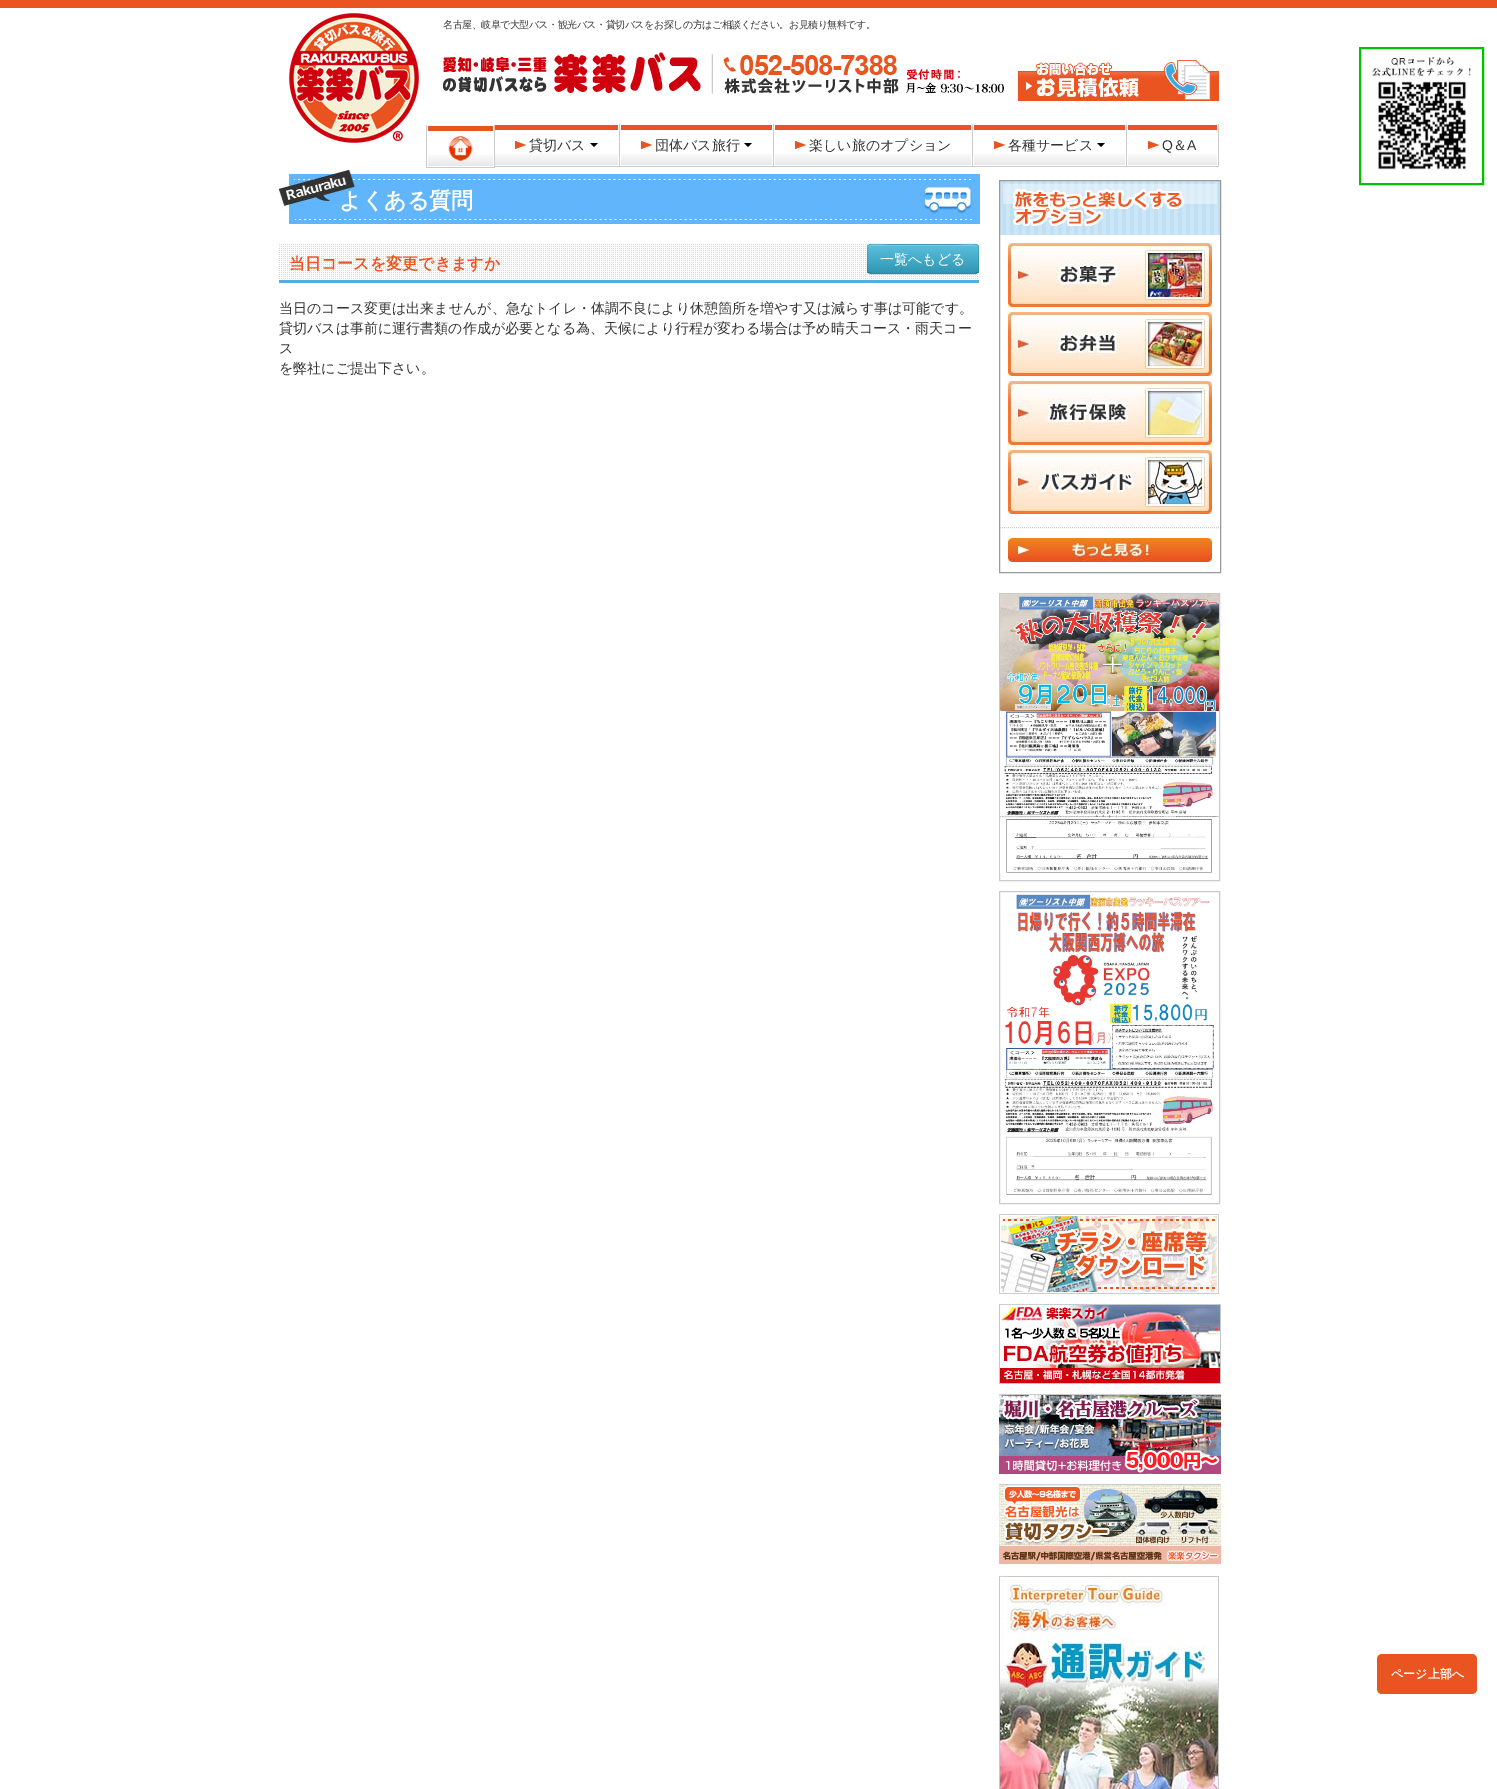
%!PS-Adobe-3.0
%%BoundingBox: 0 0 1497 1789
%%LanguageLevel: 3
%%Pages: 1
%%EndComments
%%BeginProlog
/setink { dup -16 bitshift 255 div exch dup -8 bitshift 255 and 255 div exch 255 and 255 div setrgbcolor } def
/usefont { [ exch dup neg 0 0 3 -1 roll 0 0 ] selectfont } def
/setalpha { dup .setfillconstantalpha .setstrokeconstantalpha } def
/rrect { 5 dict begin { /r /h /w /y /x } { exch def } forall
  x r add y moveto x w add y 2 copy h add r arct x w add y h add x 1 index r arct
  x y h add x y r arct x y 2 copy exch w add exch r arct closepath end } def
/softshadow { 12 dict begin { /a /b /q /h /w /y /x } { exch def } forall gsave /was 0 def
  9 -2 -9 { dup b mul 4 div /e exch def 1 sub .425 mul 2.718 exch exp 1 add a .99 .min exch div /now exch def
    1 1 now sub 1 was sub div sub setalpha /was now def
    w h .min e 2 mul add 0 gt { x e sub y e sub w e 2 mul add h e 2 mul add
      q e add b .6 mul add w h .min 2 div e add .min 0 .max rrect fill } if } for grestore end } def
/drawimage { 5 dict begin { /h /w /y /x /name } { exch def } forall
  gsave x y translate w h scale
  w h 8 [w 0 0 h 0 0] name (r) file false 3 colorimage grestore end } def
%%EndProlog
%%BeginSetup
<< /PageSize [1497 1789] /PageUsesTransparency true >> setpagedevice
%%EndSetup
%%Page: 1 1
0 .pushpdf14devicefilter
0 1789 translate 1 -1 scale
4 setmiterlimit
16#FFFFFF setink
0 0 1497 1789 rectfill
16#EA5421 setink
0 0 1497 8 rectfill
(img1.raw) 289 13 130 130 drawimage
(img2.raw) 443 52 561 42 drawimage
/WenQuanYiZenHei-Medium 10 usefont
16#333333 setink
443 28 moveto -0.5 0 (名古屋、岐阜で大型バス・観光バス・貸切バスをお探しの方はご相談ください。お見積り無料です。) ashow
(img3.raw) 1018 59 201 42 drawimage
16#00C300 setink
2 setlinewidth
1360 48 123 136 rectstroke
(img4.raw) 1371 56 100 114 drawimage
[
    [494 125 1 43 16#CCCCCC]
    [426 167 69 1 16#CCCCCC]
    [426 125 1 43 16#CCCCCC]
] { aload pop setink rectfill } forall
gsave 428 154 moveto 493 154 lineto 493 166 lineto 428 166 lineto closepath clip newpath
<< /ShadingType 2 /ColorSpace /DeviceRGB /Coords [461 166 461 131] /Extend [true true] /Function << /FunctionType 3 /Domain [0 1] /Functions [<< /FunctionType 2 /Domain [0 1] /C0 [0.91 0.91 0.91] /C1 [1 1 1] /N 1 >> << /FunctionType 2 /Domain [0 1] /C0 [1 1 1] /C1 [1 1 1] /N 1 >>] /Bounds [0.4] /Encode [0 1 0 1] >> >> shfill grestore
16#EA5421 setink
428 126 65 5 rectfill
(img5.raw) 448 136 25 25 drawimage
16#CCCCCC setink
619 124 1 43 rectfill
494 166 126 1 rectfill
gsave 495 153 moveto 618 153 lineto 618 165 lineto 495 165 lineto closepath clip newpath
<< /ShadingType 2 /ColorSpace /DeviceRGB /Coords [557 165 557 130] /Extend [true true] /Function << /FunctionType 3 /Domain [0 1] /Functions [<< /FunctionType 2 /Domain [0 1] /C0 [0.91 0.91 0.91] /C1 [1 1 1] /N 1 >> << /FunctionType 2 /Domain [0 1] /C0 [1 1 1] /C1 [1 1 1] /N 1 >>] /Bounds [0.4] /Encode [0 1 0 1] >> >> shfill grestore
16#EA5421 setink
495 125 123 5 rectfill
(img6.raw) 515 141 11 8 drawimage
/WenQuanYiZenHei-Medium 14 usefont
16#333333 setink
529 150 moveto (貸切バス) show
16#000000 setink
590 143 moveto 598 143 lineto 594 147 lineto closepath fill
16#CCCCCC setink
773 124 1 43 rectfill
620 166 154 1 rectfill
gsave 621 153 moveto 772 153 lineto 772 165 lineto 621 165 lineto closepath clip newpath
<< /ShadingType 2 /ColorSpace /DeviceRGB /Coords [697 165 697 130] /Extend [true true] /Function << /FunctionType 3 /Domain [0 1] /Functions [<< /FunctionType 2 /Domain [0 1] /C0 [0.91 0.91 0.91] /C1 [1 1 1] /N 1 >> << /FunctionType 2 /Domain [0 1] /C0 [1 1 1] /C1 [1 1 1] /N 1 >>] /Bounds [0.4] /Encode [0 1 0 1] >> >> shfill grestore
16#EA5421 setink
621 125 151 5 rectfill
(img6.raw) 641 141 11 8 drawimage
16#333333 setink
655 150 moveto (団体バス旅行) show
16#000000 setink
744 143 moveto 752 143 lineto 748 147 lineto closepath fill
16#CCCCCC setink
972 124 1 43 rectfill
774 166 199 1 rectfill
gsave 775 153 moveto 971 153 lineto 971 165 lineto 775 165 lineto closepath clip newpath
<< /ShadingType 2 /ColorSpace /DeviceRGB /Coords [873 165 873 130] /Extend [true true] /Function << /FunctionType 3 /Domain [0 1] /Functions [<< /FunctionType 2 /Domain [0 1] /C0 [0.91 0.91 0.91] /C1 [1 1 1] /N 1 >> << /FunctionType 2 /Domain [0 1] /C0 [1 1 1] /C1 [1 1 1] /N 1 >>] /Bounds [0.4] /Encode [0 1 0 1] >> >> shfill grestore
16#EA5421 setink
775 125 196 5 rectfill
(img6.raw) 795 141 11 8 drawimage
16#333333 setink
809 150 moveto (楽しい旅のオプション) show
16#CCCCCC setink
1126 124 1 43 rectfill
973 166 154 1 rectfill
gsave 974 153 moveto 1125 153 lineto 1125 165 lineto 974 165 lineto closepath clip newpath
<< /ShadingType 2 /ColorSpace /DeviceRGB /Coords [1050 165 1050 130] /Extend [true true] /Function << /FunctionType 3 /Domain [0 1] /Functions [<< /FunctionType 2 /Domain [0 1] /C0 [0.91 0.91 0.91] /C1 [1 1 1] /N 1 >> << /FunctionType 2 /Domain [0 1] /C0 [1 1 1] /C1 [1 1 1] /N 1 >>] /Bounds [0.4] /Encode [0 1 0 1] >> >> shfill grestore
16#EA5421 setink
974 125 151 5 rectfill
(img6.raw) 994 141 11 8 drawimage
16#333333 setink
1008 150 moveto (各種サービス) show
16#000000 setink
1097 143 moveto 1105 143 lineto 1101 147 lineto closepath fill
16#CCCCCC setink
1218 124 1 43 rectfill
1127 166 92 1 rectfill
gsave 1128 153 moveto 1217 153 lineto 1217 165 lineto 1128 165 lineto closepath clip newpath
<< /ShadingType 2 /ColorSpace /DeviceRGB /Coords [1173 165 1173 130] /Extend [true true] /Function << /FunctionType 3 /Domain [0 1] /Functions [<< /FunctionType 2 /Domain [0 1] /C0 [0.91 0.91 0.91] /C1 [1 1 1] /N 1 >> << /FunctionType 2 /Domain [0 1] /C0 [1 1 1] /C1 [1 1 1] /N 1 >>] /Bounds [0.4] /Encode [0 1 0 1] >> >> shfill grestore
16#EA5421 setink
1128 125 89 5 rectfill
(img6.raw) 1148 141 11 8 drawimage
/LiberationSans-Regular 14 usefont
16#333333 setink
1162 150 moveto (Q) show
/WenQuanYiZenHei-Medium 14 usefont
1173 150 moveto (＆) show
/LiberationSans-Regular 14 usefont
1187 150 moveto (A) show
(img7.raw) 279 170 701 54 drawimage
/WenQuanYiZenHei-Bold 22 usefont
16#FFFFFF setink
339 208 moveto (よくある質問) show
(img8.raw) 279 244 699 36 drawimage
16#000000 setink
867 245 112 30 4 1 0.05 softshadow
16#49AFCD setink
867 244 112 30 4 rrect fill
gsave
867 244 112 30 4 rrect clip newpath
gsave 867 245 moveto 979 245 lineto 979 273 lineto 867 273 lineto closepath clip newpath
<< /ShadingType 2 /ColorSpace /DeviceRGB /Coords [923 245 923 273] /Extend [true true] /Function << /FunctionType 2 /Domain [0 1] /C0 [0.357 0.753 0.871] /C1 [0.184 0.588 0.706] /N 1 >> >> shfill grestore
grestore
0.2 setalpha
16#FFFFFF setink
871 246 moveto 975 246 lineto 977 246 978 247 978 249 curveto 978 240 960 245 958 245 curveto 888 245 lineto 886 245 868 240 868 249 curveto 868 247 869 246 871 246 curveto closepath fill
0.25 setalpha
16#000000 setink
1 setlinewidth
977.5 272.5 moveto 975.5 273.5 lineto 888.5 273.5 lineto 871 273.5 lineto 868.5 272.5 lineto stroke
0.1 setalpha
868.5 272.5 moveto 866.5 270.5 867.5 262 867.5 259 curveto 867.5 240 866 244.5 888.5 244.5 curveto 957.5 244.5 lineto 980 244.5 978.5 240 978.5 259 curveto 978.5 262 979.5 270.5 977.5 272.5 curveto stroke
/WenQuanYiZenHei-Medium 14 usefont
1 setalpha
16#FFFFFF setink
880 264 moveto (一覧へもどる) show
16#54ADE2 setink
279 280 700 3 rectfill
/WenQuanYiZenHei-Bold 16 usefont
16#EA5421 setink
289 269 moveto (当日コースを変更できますか) show
/WenQuanYiZenHei-Medium 14 usefont
16#333333 setink
[
    [(当日のコース変更は出来ませんが、急なトイレ・体調不良により休憩箇所を増やす又は減らす事は可能です。) 279 313]
    [(貸切バスは事前に運行書類の作成が必要となる為、天候により行程が変わる場合は予め晴天コース・雨天コー) 279 333]
    [(ス) 279 353]
    [(を弊社にご提出下さい。) 279 373]
] { aload pop moveto show } forall
(img9.raw) 1000 181 220 54 drawimage
16#999999 setink
999.5 180.5 221 392 rectstroke
16#CCCCCC setink
[1 1] 0 setdash
1000 527.5 moveto 1220 527.5 lineto stroke
(img10.raw) 1008 243 204 64 drawimage
(img11.raw) 1008 312 204 64 drawimage
(img12.raw) 1008 381 204 64 drawimage
(img13.raw) 1008 450 204 64 drawimage
(img14.raw) 1008 538 204 24 drawimage
16#CBCBCB setink
[] 0 setdash
999.5 593.5 220 287 rectstroke
(img15.raw) 1000 594 219 279 drawimage
999.5 891.5 220 312 rectstroke
(img16.raw) 1005 894 209 301 drawimage
(img17.raw) 999 1214 220 80 drawimage
(img18.raw) 999 1304 222 80 drawimage
(img19.raw) 999 1394 222 80 drawimage
(img20.raw) 999 1484 222 80 drawimage
(img21.raw) 999 1574 220 215 drawimage
16#EA5421 setink
1377 1654 100 40 5 rrect fill
/WenQuanYiZenHei-Bold 12 usefont
16#FFFFFF setink
1391 1678 moveto (ページ上部へ) show
.poppdf14devicefilter showpage
%%EOF
